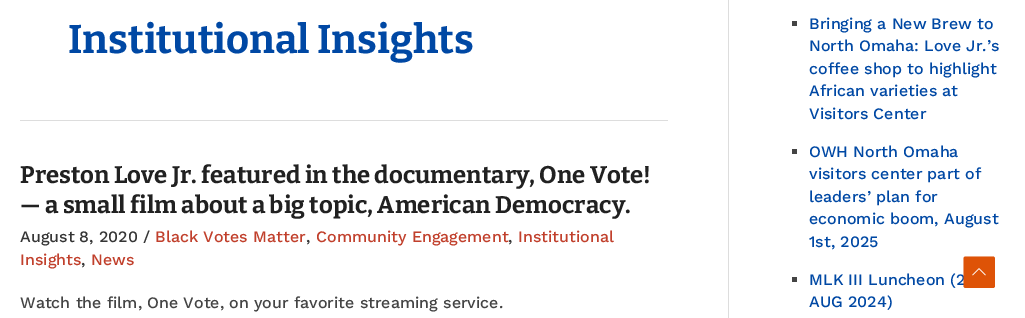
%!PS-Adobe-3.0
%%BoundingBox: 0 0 1025 318
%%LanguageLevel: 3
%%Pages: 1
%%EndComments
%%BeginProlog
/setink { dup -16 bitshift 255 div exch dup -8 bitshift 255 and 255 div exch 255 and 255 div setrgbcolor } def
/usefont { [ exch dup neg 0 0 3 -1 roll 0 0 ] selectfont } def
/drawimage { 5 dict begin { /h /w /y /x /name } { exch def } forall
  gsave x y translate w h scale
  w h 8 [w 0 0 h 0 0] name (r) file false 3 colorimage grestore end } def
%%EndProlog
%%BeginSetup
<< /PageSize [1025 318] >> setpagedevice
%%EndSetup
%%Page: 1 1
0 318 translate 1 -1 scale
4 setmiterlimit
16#FFFFFF setink
0 0 1025 318 rectfill
16#DDDDDD setink
728 0 1 318 rectfill
20 120 648 1 rectfill
/Bitter-Thin 40 usefont
16#0048A4 setink
68 53 moveto (Institutional Insights) show
/Bitter-Thin 24 usefont
16#212121 setink
20 183 moveto (Preston Love Jr. featured in the documentary, One Vote!) show
20 213 moveto (— a small film about a big topic, American Democracy.) show
/WorkSans-Medium 16 usefont
16#353535 setink
20 242 moveto (August 8, 2020) show
143 242 moveto (/) show
16#C1402C setink
155 242 moveto (Black Votes Matter) show
16#353535 setink
306 242 moveto (,) show
16#C1402C setink
316 242 moveto (Community Engagement) show
16#353535 setink
508 242 moveto (,) show
16#C1402C setink
518 242 moveto (Institutional) show
20 265 moveto (Insights) show
16#353535 setink
81 265 moveto (,) show
16#C1402C setink
91 265 moveto (News) show
16#444444 setink
20 308 moveto (Watch the film, One Vote, on your favorite streaming service.) show
792 21 5 5 rectfill
16#0048A4 setink
[
    [(Bringing a New Brew to) 809 29]
    [(North Omaha: Love Jr.’s) 809 51]
    [(coffee shop to highlight) 809 74]
    [(African varieties at) 809 96]
    [(Visitors Center) 809 119]
] { aload pop moveto show } forall
16#444444 setink
792 149 5 5 rectfill
16#0048A4 setink
[
    [(OWH North Omaha) 809 157]
    [(visitors center part of) 809 179]
    [(leaders’ plan for) 809 202]
    [(economic boom, August) 809 224]
    [(1st, 2025) 809 247]
] { aload pop moveto show } forall
16#444444 setink
792 277 5 5 rectfill
16#0048A4 setink
809 285 moveto (MLK III Luncheon \(2) show
809 307 moveto (AUG 2024\)) show
16#DE5307 setink
993 288 moveto 965.5 288 lineto 964.5 288 963.5 287 963.5 286 curveto 963.5 258.5 lineto 963.5 257.5 964.5 256.5 965.5 256.5 curveto 993 256.5 lineto 994 256.5 995 257.5 995 258.5 curveto 995 286 lineto 995 287 994 288 993 288 curveto closepath fill
(img1.raw) 972 268 14 8 drawimage
showpage
%%EOF
